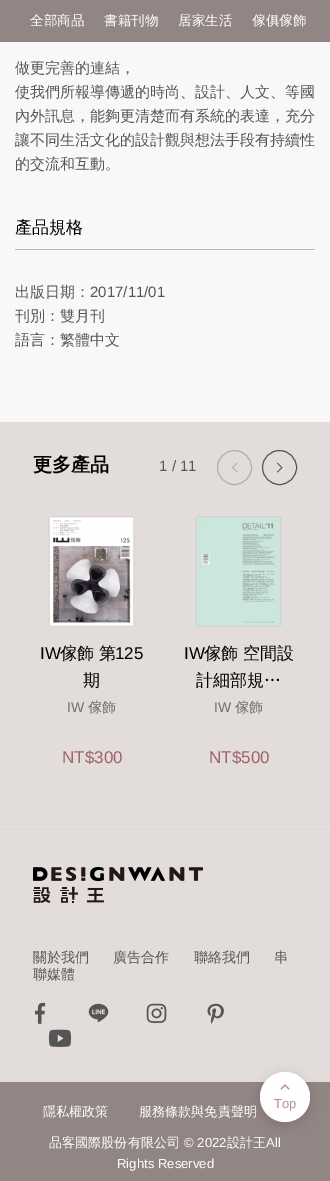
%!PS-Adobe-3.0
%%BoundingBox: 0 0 330 1181
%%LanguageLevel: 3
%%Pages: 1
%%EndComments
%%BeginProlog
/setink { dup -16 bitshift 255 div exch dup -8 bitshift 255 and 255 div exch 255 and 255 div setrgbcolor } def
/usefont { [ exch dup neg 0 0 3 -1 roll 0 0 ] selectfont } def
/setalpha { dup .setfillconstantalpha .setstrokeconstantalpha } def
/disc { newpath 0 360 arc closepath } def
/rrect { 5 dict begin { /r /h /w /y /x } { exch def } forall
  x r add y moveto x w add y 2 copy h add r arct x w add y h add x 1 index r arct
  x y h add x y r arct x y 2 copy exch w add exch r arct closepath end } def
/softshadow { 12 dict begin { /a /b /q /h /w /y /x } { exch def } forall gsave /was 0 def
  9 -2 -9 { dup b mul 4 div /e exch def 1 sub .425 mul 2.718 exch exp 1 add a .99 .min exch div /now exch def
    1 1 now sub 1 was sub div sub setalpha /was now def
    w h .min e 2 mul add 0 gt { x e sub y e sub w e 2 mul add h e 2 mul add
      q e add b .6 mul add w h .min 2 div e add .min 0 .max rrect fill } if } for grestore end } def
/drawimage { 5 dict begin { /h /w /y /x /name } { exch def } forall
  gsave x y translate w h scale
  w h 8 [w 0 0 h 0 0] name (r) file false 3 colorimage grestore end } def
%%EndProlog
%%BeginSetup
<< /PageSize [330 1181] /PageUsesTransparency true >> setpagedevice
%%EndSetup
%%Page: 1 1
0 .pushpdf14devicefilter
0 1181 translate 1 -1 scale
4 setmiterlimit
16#E2DCDB setink
0 0 330 1181 rectfill
16#928684 setink
0 0 330 42 rectfill
/WenQuanYiZenHei-Medium 13.5 usefont
16#FFFFFF setink
[
    [(全部商品) 30 25]
    [(書籍刊物) 104 25]
    [(居家生活) 178 25]
    [(傢俱傢飾) 252 25]
] { aload pop moveto show } forall
16#F8F8F8 setink
0 42 330 380 rectfill
/WenQuanYiZenHei-Medium 15 usefont
16#555555 setink
[
    [(做更完善的連結，) 15 73]
    [(使我們所報導傳遞的時尚、設計、人文、等國) 15 97]
    [(內外訊息，能夠更清楚而有系統的表達，充分) 15 121]
    [(讓不同生活文化的設計觀與想法手段有持續性) 15 145]
    [(的交流和互動。) 15 169]
] { aload pop moveto show } forall
16#B8B8B8 setink
15 249 300 1 rectfill
/WenQuanYiZenHei-Medium 17 usefont
16#000000 setink
15 233 moveto (產品規格) show
/WenQuanYiZenHei-Medium 15 usefont
16#555555 setink
15 297 moveto (出版日期：) show
/LiberationSans-Regular 15 usefont
90 297 moveto (2017/11/01) show
/WenQuanYiZenHei-Medium 15 usefont
15 321 moveto (刊別：雙月刊) show
15 345 moveto (語言：繁體中文) show
/WenQuanYiZenHei-Bold 19 usefont
16#000000 setink
33 471 moveto (更多產品) show
/LiberationSans-Regular 15 usefont
16#555555 setink
159 471 moveto (1 / 11) show
16#B1ADAC setink
234.5 467.5 17 disc stroke
(img1.raw) 232 462 6 11 drawimage
16#555555 setink
279.5 467.5 17 disc stroke
(img2.raw) 276 462 7 11 drawimage
(img3.raw) 48 516 87 111 drawimage
/LiberationSans-Regular 17 usefont
16#000000 setink
40 659 moveto (IW) show
/WenQuanYiZenHei-Medium 17 usefont
60 659 moveto (傢飾 第) show
/LiberationSans-Regular 17 usefont
115 659 moveto (125) show
/WenQuanYiZenHei-Medium 17 usefont
83 686 moveto (期) show
/LiberationSans-Regular 14 usefont
16#717070 setink
67 712 moveto (IW) show
/WenQuanYiZenHei-Medium 14 usefont
88 712 moveto (傢飾) show
/LiberationSans-Regular 17 usefont
16#A06265 setink
62 763 moveto (NT$300) show
(img4.raw) 195 516 87 111 drawimage
16#000000 setink
184 659 moveto (IW) show
/WenQuanYiZenHei-Medium 17 usefont
204 659 moveto (傢飾 空間設) show
gsave
180 640 117 48 rectclip
196 686 moveto (計細部規…) show
grestore
/LiberationSans-Regular 14 usefont
16#717070 setink
214 712 moveto (IW) show
/WenQuanYiZenHei-Medium 14 usefont
235 712 moveto (傢飾) show
/LiberationSans-Regular 17 usefont
16#A06265 setink
209 763 moveto (NT$500) show
16#E4E4E4 setink
0 826 330 1 rectfill
(img5.raw) 33 867 170 36 drawimage
/WenQuanYiZenHei-Medium 14 usefont
16#555555 setink
[
    [(關於我們) 33 962]
    [(廣告合作) 113 962]
    [(聯絡我們) 194 962]
    [(串) 274 962]
    [(聯媒體) 33 979]
] { aload pop moveto show } forall
(img6.raw) 35 1002 11 22 drawimage
(img7.raw) 88 1003 21 20 drawimage
(img8.raw) 146 1003 21 20 drawimage
(img9.raw) 207 1003 17 21 drawimage
(img10.raw) 48 1029 23 18 drawimage
16#928684 setink
0 1082 330 99 rectfill
/WenQuanYiZenHei-Medium 13.1 usefont
16#FFFFFF setink
[
    [(隱私權政策) 43 1116]
    [(服務條款與免責聲明) 139 1116]
    [(品客國際股份有限公司) 49 1147]
] { aload pop moveto show } forall
/LiberationSans-Regular 13.1 usefont
184 1147 moveto (© 2022) show
/WenQuanYiZenHei-Medium 13.1 usefont
227 1147 moveto (設計王) show
/LiberationSans-Regular 13.1 usefont
266 1147 moveto (All) show
117 1168 moveto (Rights Reserved) show
16#000000 setink
260 1074 50 50 25 5 0.12 softshadow
16#FFFFFF setink
285 1097 25 disc fill
(img11.raw) 280 1084 10 6 drawimage
/LiberationSans-Regular 13 usefont
16#C6898C setink
274 1108 moveto (Top) show
.poppdf14devicefilter showpage
%%EOF
